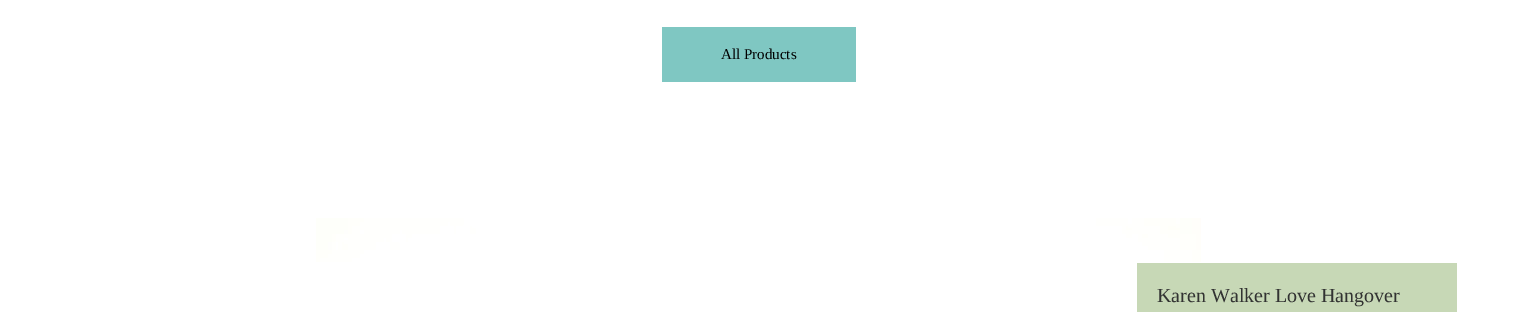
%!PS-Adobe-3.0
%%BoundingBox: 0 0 1517 312
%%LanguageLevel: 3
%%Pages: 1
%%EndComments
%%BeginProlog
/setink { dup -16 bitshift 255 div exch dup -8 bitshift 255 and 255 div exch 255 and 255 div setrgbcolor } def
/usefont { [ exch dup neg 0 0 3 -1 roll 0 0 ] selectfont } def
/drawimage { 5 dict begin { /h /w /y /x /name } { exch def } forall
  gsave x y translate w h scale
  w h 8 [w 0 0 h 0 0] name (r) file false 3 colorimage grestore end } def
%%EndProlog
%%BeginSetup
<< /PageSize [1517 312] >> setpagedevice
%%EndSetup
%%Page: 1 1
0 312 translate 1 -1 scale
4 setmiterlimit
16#FFFFFF setink
0 0 1517 312 rectfill
16#7FC7C2 setink
662 27 194 55 rectfill
/LiberationSerif-Regular 15 usefont
16#000000 setink
721 59 moveto (All Products) show
(img1.raw) 316 218 885 44 drawimage
16#C7D8B6 setink
1137 263 320 49 rectfill
/LiberationSerif-Regular 20 usefont
16#323332 setink
1157 302 moveto (Karen Walker Love Hangover) show
showpage
%%EOF
